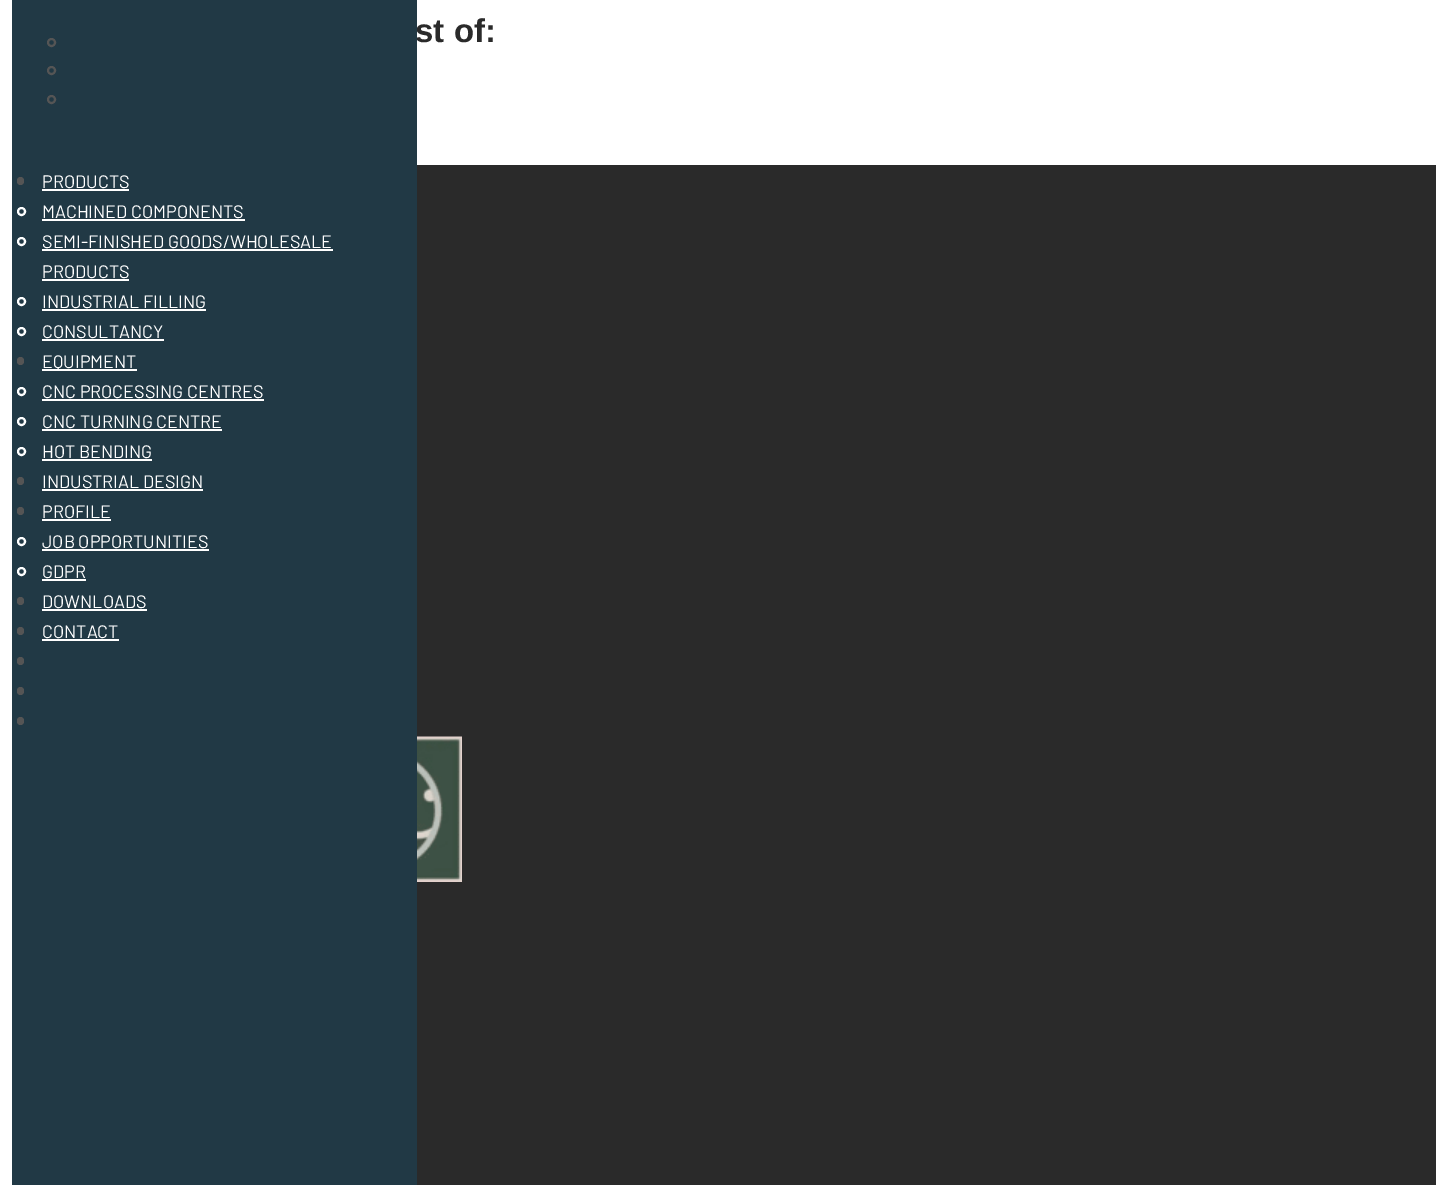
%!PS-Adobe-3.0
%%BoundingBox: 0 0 1447 1185
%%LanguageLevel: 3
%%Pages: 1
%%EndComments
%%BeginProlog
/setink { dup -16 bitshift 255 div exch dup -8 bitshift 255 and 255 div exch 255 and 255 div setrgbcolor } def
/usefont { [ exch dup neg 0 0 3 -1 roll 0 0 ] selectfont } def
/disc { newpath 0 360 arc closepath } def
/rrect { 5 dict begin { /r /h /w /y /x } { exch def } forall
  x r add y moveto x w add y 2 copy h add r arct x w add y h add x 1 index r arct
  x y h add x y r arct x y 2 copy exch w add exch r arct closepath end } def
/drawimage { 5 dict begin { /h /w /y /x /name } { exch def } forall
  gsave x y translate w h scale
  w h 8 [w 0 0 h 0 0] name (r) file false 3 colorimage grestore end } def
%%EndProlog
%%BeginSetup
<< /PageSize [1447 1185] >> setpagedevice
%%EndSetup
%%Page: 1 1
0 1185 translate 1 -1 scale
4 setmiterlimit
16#FFFFFF setink
0 0 1447 1185 rectfill
/LiberationSans-Bold 33 usefont
16#2A2A2A setink
415 42 moveto (st of:) show
417 165 1019 1020 rectfill
(img1.raw) 417 736 45 146 drawimage
16#213945 setink
12 0 405 1185 rectfill
16#555555 setink
2 setlinewidth
51.5 42.5 3.5 disc stroke
51.5 70.5 3.5 disc stroke
51.5 99.5 3.5 disc stroke
17 177 7 8 3.5 rrect fill
/Barlow-Regular 18 usefont
16#FFFFFF setink
42 188 moveto (PRODUCTS) show
42 189 87 2 rectfill
21.5 211.5 3.5 disc stroke
42 218 moveto (MACHINED COMPONENTS) show
42 219 203 2 rectfill
21.5 241.5 3.5 disc stroke
42 248 moveto (SEMI-FINISHED GOODS/WHOLESALE) show
42 249 291 2 rectfill
42 278 moveto (PRODUCTS) show
42 279 87 2 rectfill
21.5 301.5 3.5 disc stroke
42 308 moveto (INDUSTRIAL FILLING) show
42 309 164 2 rectfill
21.5 331.5 3.5 disc stroke
42 338 moveto (CONSULTANCY) show
42 339 122 2 rectfill
16#555555 setink
17 357 7 8 3.5 rrect fill
16#FFFFFF setink
42 369 95 2 rectfill
42 368 moveto (EQUIPMENT) show
21.5 391.5 3.5 disc stroke
42 398 moveto (CNC PROCESSING CENTRES) show
42 399 222 2 rectfill
21.5 421.5 3.5 disc stroke
42 428 moveto (CNC TURNING CENTRE) show
42 429 180 2 rectfill
21.5 451.5 3.5 disc stroke
42 458 moveto (HOT BENDING) show
42 459 110 2 rectfill
16#555555 setink
17 477 7 8 3.5 rrect fill
16#FFFFFF setink
42 488 moveto (INDUSTRIAL DESIGN) show
42 489 161 2 rectfill
16#555555 setink
17 507 7 8 3.5 rrect fill
16#FFFFFF setink
42 518 moveto (PROFILE) show
42 519 69 2 rectfill
21.5 541.5 3.5 disc stroke
42 548 moveto (JOB OPPORTUNITIES) show
42 549 167 2 rectfill
21.5 571.5 3.5 disc stroke
42 578 moveto (GDPR) show
42 579 44 2 rectfill
16#555555 setink
17 597 7 8 3.5 rrect fill
16#FFFFFF setink
42 608 moveto (DOWNLOADS) show
42 609 105 2 rectfill
16#555555 setink
17 627 7 8 3.5 rrect fill
16#FFFFFF setink
42 638 moveto (CONTACT) show
42 639 77 2 rectfill
16#555555 setink
17 657 7 8 3.5 rrect fill
17 687 7 8 3.5 rrect fill
17 717 7 8 3.5 rrect fill
showpage
%%EOF
